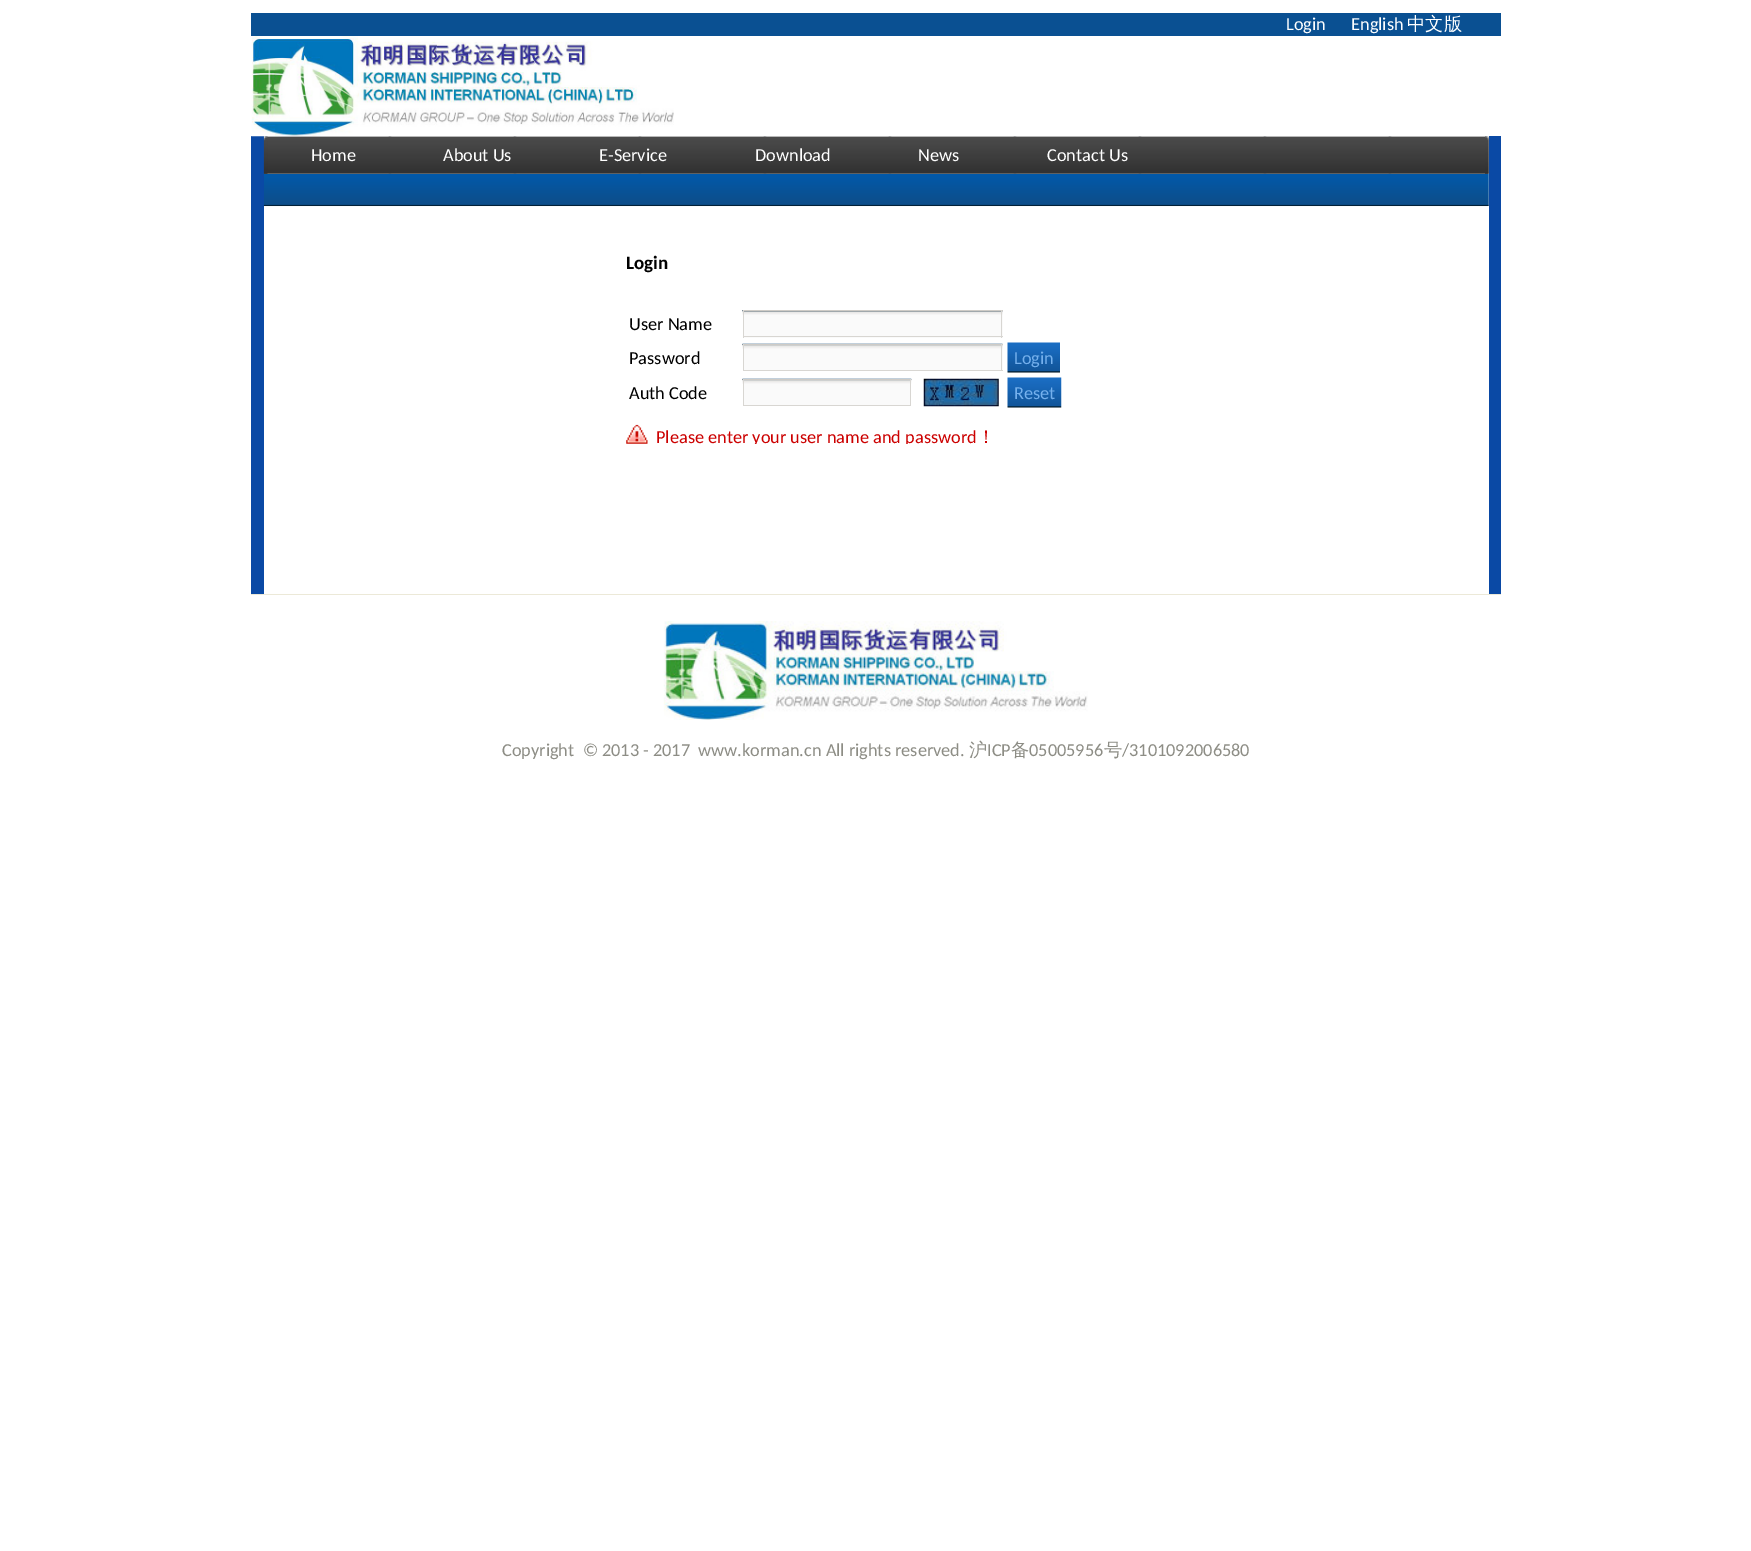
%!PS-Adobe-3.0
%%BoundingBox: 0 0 1751 1551
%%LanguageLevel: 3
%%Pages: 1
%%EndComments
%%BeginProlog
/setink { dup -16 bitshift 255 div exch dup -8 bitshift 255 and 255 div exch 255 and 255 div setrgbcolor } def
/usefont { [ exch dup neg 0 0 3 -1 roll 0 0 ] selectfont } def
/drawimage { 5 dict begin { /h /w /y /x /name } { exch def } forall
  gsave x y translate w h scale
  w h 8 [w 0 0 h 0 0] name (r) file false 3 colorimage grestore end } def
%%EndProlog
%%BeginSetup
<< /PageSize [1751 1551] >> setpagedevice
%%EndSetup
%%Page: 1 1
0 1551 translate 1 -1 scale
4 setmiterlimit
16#FFFFFF setink
0 0 1751 1551 rectfill
16#0A5092 setink
251 13 1250 23 rectfill
/Carlito-Regular 18.3 usefont
16#FFFFFF setink
1286 30 moveto (Login) show
1351 30 moveto (English) show
/WenQuanYiZenHei-Medium 18.3 usefont
1407 30 moveto (中文版) show
16#0A49A5 setink
251 136 13 458 rectfill
(img1.raw) 251 36 423 101 drawimage
1489 136 12 458 rectfill
(img5.raw) 263 173 1226 34 drawimage
(img2.raw) 263 136 1226 38 drawimage
(img3.raw) 263 136 5 38 drawimage
/Carlito-Regular 18.3 usefont
16#FFFFFF setink
[
    [(Home) 311 161]
    [(About Us) 443 161]
    [(E-Service) 599 161]
    [(Download) 755 161]
    [(News) 918 161]
    [(Contact Us) 1047 161]
] { aload pop moveto show } forall
(img4.raw) 1485 136 4 38 drawimage
/Carlito-Bold 19 usefont
16#000000 setink
626 269 moveto (Login) show
/Carlito-Regular 18.3 usefont
629 330 moveto (User Name) show
16#FAFAFA setink
744 311 259 27 rectfill
(img6.raw) 742 310 261 5 drawimage
[
    [743 310 260 1 16#CECBC6]
    [1001 310 1 28 16#D8D6D2]
    [743 336 260 1 16#D8D6D2]
    [743 310 1 28 16#D8D6D2]
] { aload pop setink rectfill } forall
16#000000 setink
629 364 moveto (Password) show
16#FAFAFA setink
744 345 259 25 rectfill
(img7.raw) 742 343 261 6 drawimage
[
    [743 344 260 1 16#CECBC6]
    [1001 344 1 27 16#D8D6D2]
    [743 370 260 1 16#D8D6D2]
    [743 344 1 27 16#D8D6D2]
    [1008 372 52 1 16#EFEFEF]
] { aload pop setink rectfill } forall
(img8.raw) 1007 342 53 31 drawimage
16#74B0ED setink
1014 364 moveto (Login) show
16#000000 setink
629 399 moveto (Auth Code) show
16#FAFAFA setink
744 384 166 21 rectfill
(img9.raw) 742 378 170 6 drawimage
[
    [743 379 168 1 16#CECBC6]
    [910 379 1 27 16#D8D6D2]
    [743 405 168 1 16#D8D6D2]
    [743 379 1 27 16#D8D6D2]
] { aload pop setink rectfill } forall
(img10.raw) 923 378 76 29 drawimage
16#EFEFEF setink
1008 407 53 1 rectfill
(img11.raw) 1007 377 55 31 drawimage
16#74B0ED setink
1014 399 moveto (Reset) show
(img12.raw) 626 424 22 20 drawimage
gsave
626 424 500 20 rectclip
16#CC0000 setink
656 443 moveto (Please enter your user name and password) show
grestore
/WenQuanYiZenHei-Medium 18.3 usefont
16#CC0000 setink
977 443 moveto (！) show
16#ECE9D8 setink
251 594 1250 1 rectfill
(img13.raw) 663 621 425 99 drawimage
/Carlito-Regular 18.3 usefont
16#8D8D85 setink
502 756 moveto (Copyright  © 2013 - 2017  www.korman.cn All rights reserved.) show
/WenQuanYiZenHei-Medium 18.3 usefont
969 756 moveto (沪) show
/Carlito-Regular 18.3 usefont
987 756 moveto (ICP) show
/WenQuanYiZenHei-Medium 18.3 usefont
1011 756 moveto (备) show
/Carlito-Regular 18.3 usefont
1029 756 moveto (05005956) show
/WenQuanYiZenHei-Medium 18.3 usefont
1104 756 moveto (号) show
/Carlito-Regular 18.3 usefont
1122 756 moveto (/3101092006580) show
showpage
%%EOF
